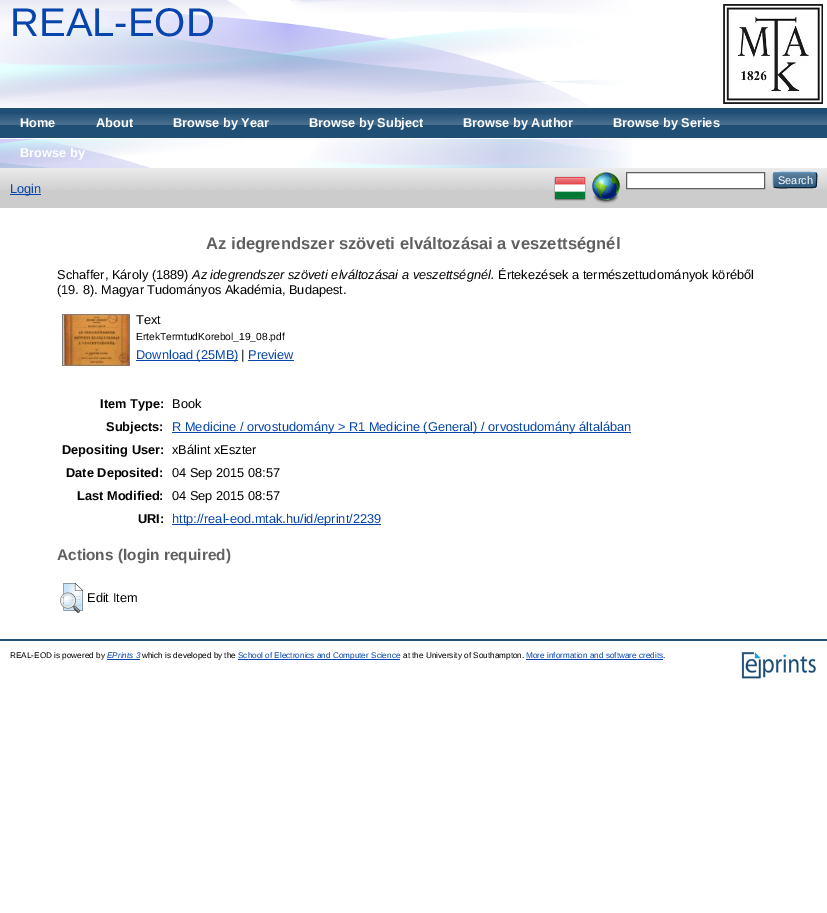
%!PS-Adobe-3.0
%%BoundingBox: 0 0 827 913
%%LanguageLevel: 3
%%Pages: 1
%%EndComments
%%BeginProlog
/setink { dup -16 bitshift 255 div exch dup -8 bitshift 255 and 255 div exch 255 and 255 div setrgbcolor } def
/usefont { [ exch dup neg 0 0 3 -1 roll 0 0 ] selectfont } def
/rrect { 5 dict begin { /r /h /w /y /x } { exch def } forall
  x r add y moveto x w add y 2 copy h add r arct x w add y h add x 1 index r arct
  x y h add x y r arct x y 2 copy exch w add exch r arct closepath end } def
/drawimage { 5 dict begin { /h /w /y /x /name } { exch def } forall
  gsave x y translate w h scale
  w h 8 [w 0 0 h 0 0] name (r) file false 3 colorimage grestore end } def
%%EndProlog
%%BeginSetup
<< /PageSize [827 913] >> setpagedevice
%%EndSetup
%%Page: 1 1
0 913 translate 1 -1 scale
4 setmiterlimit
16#FFFFFF setink
0 0 827 913 rectfill
(img1.raw) 0 0 632 168 drawimage
/LiberationSans-Regular 40 usefont
16#0645AD setink
10 36 moveto (REAL-EOD) show
(img2.raw) 723 4 100 100 drawimage
16#204F76 setink
0 108 827 30 rectfill
(img3.raw) 0 114 827 11 drawimage
16#FFFFFF setink
0 138 632 1 rectfill
/LiberationSans-Bold 12.8 usefont
[
    [(Home) 20 127]
    [(About) 96 127]
    [(Browse by Year) 173 127]
    [(Browse by Subject) 309 127]
    [(Browse by Author) 463 127]
    [(Browse by Series) 613 127]
    [(Browse by) 20 157]
] { aload pop moveto show } forall
16#CCCCCC setink
0 168 827 40 rectfill
(img4.raw) 0 168 827 22 drawimage
(img5.raw) 554 176 32 25 drawimage
(img6.raw) 592 172 28 32 drawimage
16#FFFFFF setink
626.5 172.5 moveto 764.5 172.5 lineto 764.5 188.5 lineto 626.5 188.5 lineto closepath gsave fill grestore
16#606060 setink
stroke
16#1F4F76 setink
773 172 44 16 3 rrect fill
(img7.raw) 773 172 44 16 drawimage
16#5B97C7 setink
774 173 moveto 775.5 172 814.5 172 816 173 curveto stroke
16#0D2131 setink
816 173 moveto 817.5 175 816.5 178 816.5 180 curveto 816.5 188.5 817 187.5 807.5 187.5 curveto 795 187.5 lineto 792 187.5 776 188.5 774 187 curveto stroke
16#5287B3 setink
774 187 moveto 773 185.5 773.5 181.5 773.5 180 curveto 773.5 178.5 773 174.5 774 173 curveto stroke
/LiberationSans-Regular 11 usefont
16#FFFFFF setink
778 184 moveto (Search) show
16#0645AD setink
10 194 31 1 rectfill
/LiberationSans-Regular 12.8 usefont
10 193 moveto (Login) show
/LiberationSans-Bold 16.6 usefont
16#606060 setink
206 249 moveto (Az idegrendszer szöveti elváltozásai a veszettségnél) show
/LiberationSans-Regular 12.8 usefont
16#000000 setink
57 279 moveto (Schaffer, Károly \(1889\)) show
/LiberationSans-Italic 12.8 usefont
192 279 moveto (Az idegrendszer szöveti elváltozásai a veszettségnél.) show
/LiberationSans-Regular 12.8 usefont
498 279 moveto (Értekezések a természettudományok köréből) show
57 294 moveto (\(19. 8\). Magyar Tudományos Akadémia, Budapest.) show
(img8.raw) 62 314 68 52 drawimage
136 324 moveto (Text) show
/LiberationSans-Regular 10.25 usefont
136 340 moveto (ErtekTermtudKorebol_19_08.pdf) show
16#0645AD setink
136 360 102 1 rectfill
/LiberationSans-Regular 12.8 usefont
136 359 moveto (Download \(25MB\)) show
16#000000 setink
241 359 moveto (|) show
16#0645AD setink
248 359 moveto (Preview) show
248 360 46 1 rectfill
/LiberationSans-Bold 12.8 usefont
16#000000 setink
100 408 moveto (Item Type:) show
/LiberationSans-Regular 12.8 usefont
172 408 moveto (Book) show
/LiberationSans-Bold 12.8 usefont
106 431 moveto (Subjects:) show
16#0645AD setink
172 432 459 1 rectfill
/LiberationSans-Regular 12.8 usefont
172 431 moveto (R Medicine / orvostudomány > R1 Medicine \(General\) / orvostudomány általában) show
/LiberationSans-Bold 12.8 usefont
16#000000 setink
62 454 moveto (Depositing User:) show
/LiberationSans-Regular 12.8 usefont
172 454 moveto (xBálint xEszter) show
/LiberationSans-Bold 12.8 usefont
66 477 moveto (Date Deposited:) show
/LiberationSans-Regular 12.8 usefont
172 477 moveto (04 Sep 2015 08:57) show
/LiberationSans-Bold 12.8 usefont
77 500 moveto (Last Modified:) show
/LiberationSans-Regular 12.8 usefont
172 500 moveto (04 Sep 2015 08:57) show
/LiberationSans-Bold 12.8 usefont
138 523 moveto (URI:) show
16#0645AD setink
172 524 209 1 rectfill
/LiberationSans-Regular 12.8 usefont
172 523 moveto (http://real-eod.mtak.hu/id/eprint/2239) show
/LiberationSans-Bold 15.4 usefont
16#606060 setink
57 560 moveto (Actions \(login required\)) show
(img9.raw) 60 583 23 30 drawimage
/LiberationSans-Regular 12.8 usefont
16#000000 setink
87 602 moveto (Edit Item) show
16#204F76 setink
0 639 827 2 rectfill
/LiberationSans-Regular 8.2 usefont
16#000000 setink
10 658 moveto (REAL-EOD is powered by) show
/LiberationSans-Italic 8.2 usefont
16#0645AD setink
107 658 moveto (EPrints 3) show
107 659 33 1 rectfill
/LiberationSans-Regular 8.2 usefont
16#000000 setink
142 658 moveto (which is developed by the) show
16#0645AD setink
238 659 162 1 rectfill
238 658 moveto (School of Electronics and Computer Science) show
16#000000 setink
403 658 moveto (at the University of Southampton.) show
16#0645AD setink
526 658 moveto (More information and software credits) show
526 659 137 1 rectfill
16#000000 setink
663 658 moveto (.) show
(img10.raw) 740 652 76 28 drawimage
showpage
%%EOF
